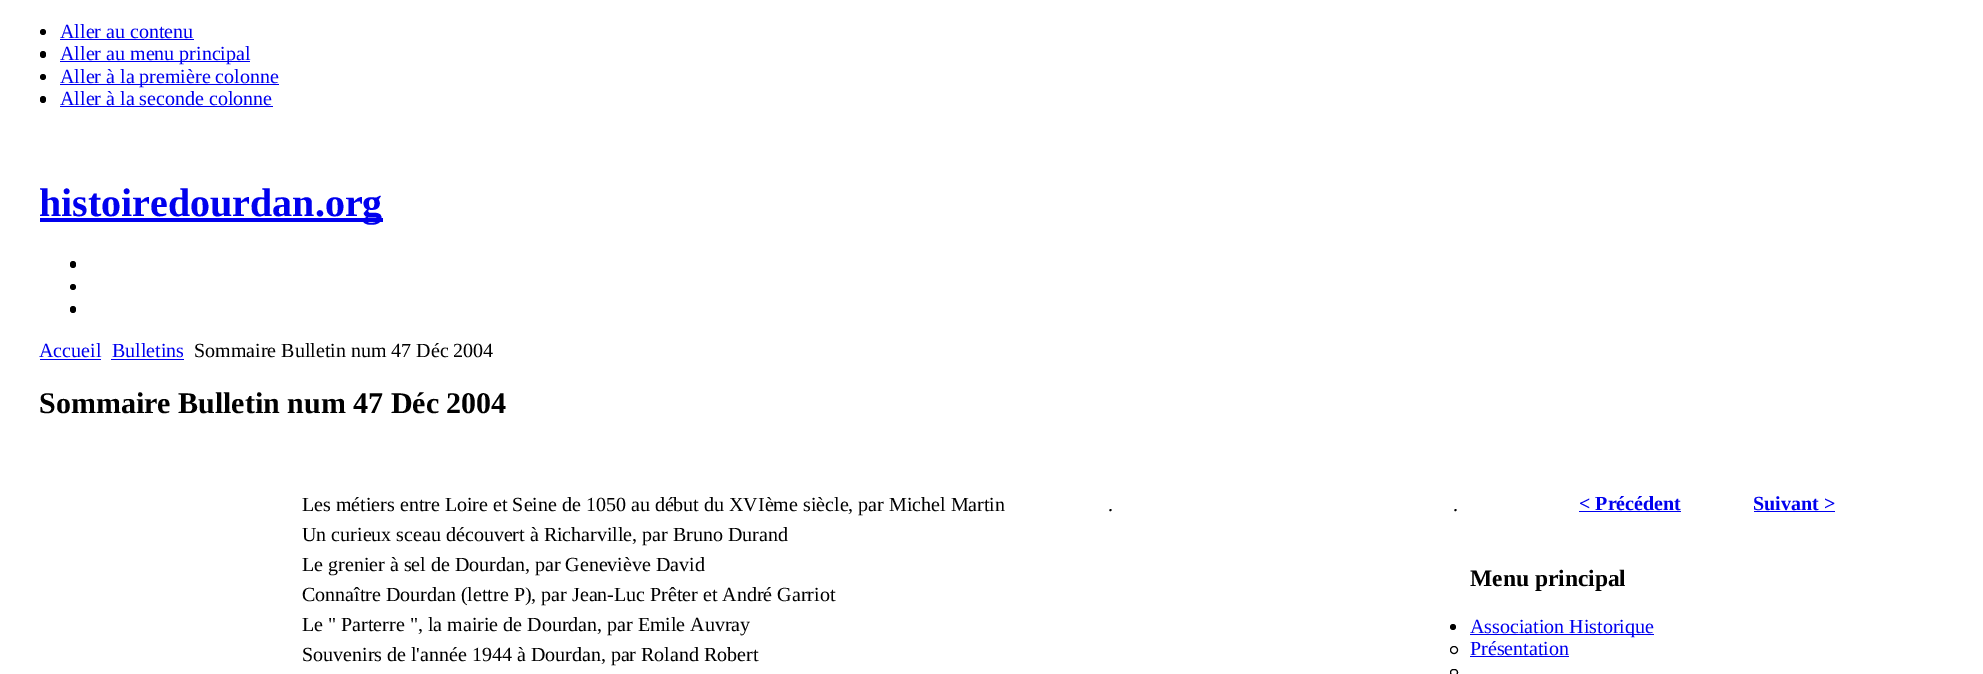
%!PS-Adobe-3.0
%%BoundingBox: 0 0 1983 674
%%LanguageLevel: 3
%%Pages: 1
%%EndComments
%%BeginProlog
/setink { dup -16 bitshift 255 div exch dup -8 bitshift 255 and 255 div exch 255 and 255 div setrgbcolor } def
/usefont { [ exch dup neg 0 0 3 -1 roll 0 0 ] selectfont } def
/disc { newpath 0 360 arc closepath } def
/rrect { 5 dict begin { /r /h /w /y /x } { exch def } forall
  x r add y moveto x w add y 2 copy h add r arct x w add y h add x 1 index r arct
  x y h add x y r arct x y 2 copy exch w add exch r arct closepath end } def
%%EndProlog
%%BeginSetup
<< /PageSize [1983 674] >> setpagedevice
%%EndSetup
%%Page: 1 1
0 674 translate 1 -1 scale
4 setmiterlimit
16#FFFFFF setink
0 0 1983 674 rectfill
16#000000 setink
43 32 3 disc fill
/LiberationSerif-Regular 20 usefont
16#0000EE setink
60 38 moveto (Aller au contenu) show
60 39 134 1 rectfill
16#000000 setink
40 51 6 7 3 rrect fill
16#0000EE setink
60 61 190 1 rectfill
60 60 moveto (Aller au menu principal) show
16#000000 setink
43 77 3 disc fill
16#0000EE setink
60 84 219 1 rectfill
60 83 moveto (Aller à la première colonne) show
16#000000 setink
40 96 6 7 3 rrect fill
16#0000EE setink
60 105 moveto (Aller à la seconde colonne) show
60 106 213 1 rectfill
40 218 343 4 rectfill
/LiberationSerif-Bold 40 usefont
39 216 moveto (histoiredourdan.org) show
16#000000 setink
70 261 6 7 3 rrect fill
73 287 3 disc fill
70 306 6 7 3 rrect fill
/LiberationSerif-Regular 20 usefont
16#0000EE setink
39 357 moveto (Accueil) show
40 359 61 1 rectfill
112 357 moveto (Bulletins) show
111 359 73 1 rectfill
16#000000 setink
194 357 moveto (Sommaire Bulletin num 47 Déc 2004) show
/LiberationSerif-Bold 30 usefont
39 413 moveto (Sommaire Bulletin num 47 Déc 2004) show
/LiberationSerif-Regular 20 usefont
[
    [(Les métiers entre Loire et Seine de 1050 au début du XVIème siècle, par Michel Martin) 302 511]
    [(.                                                                    .) 1108 511]
    [(Un curieux sceau découvert à Richarville, par Bruno Durand) 302 541]
    [(Le grenier à sel de Dourdan, par Geneviève David) 302 571]
    [(Connaître Dourdan \(lettre P\), par Jean-Luc Prêter et André Garriot) 302 601]
    [(Le " Parterre ", la mairie de Dourdan, par Emile Auvray) 302 631]
    [(Souvenirs de l'année 1944 à Dourdan, par Roland Robert) 302 661]
] { aload pop moveto show } forall
/LiberationSerif-Bold 20 usefont
16#0000EE setink
1579 510 moveto (< Précédent) show
1579 511 102 1 rectfill
1753 510 moveto (Suivant >) show
1754 511 81 1 rectfill
/LiberationSerif-Bold 23.5 usefont
16#000000 setink
1470 586 moveto (Menu principal) show
1453 627 3 disc fill
16#0000EE setink
1470 634 184 1 rectfill
/LiberationSerif-Regular 20 usefont
1470 633 moveto (Association Historique) show
16#000000 setink
1454 650 3.5 disc stroke
16#0000EE setink
1470 655 moveto (Présentation) show
1470 656 99 1 rectfill
16#000000 setink
1450.5 669.5 7 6 3 rrect stroke
showpage
%%EOF
